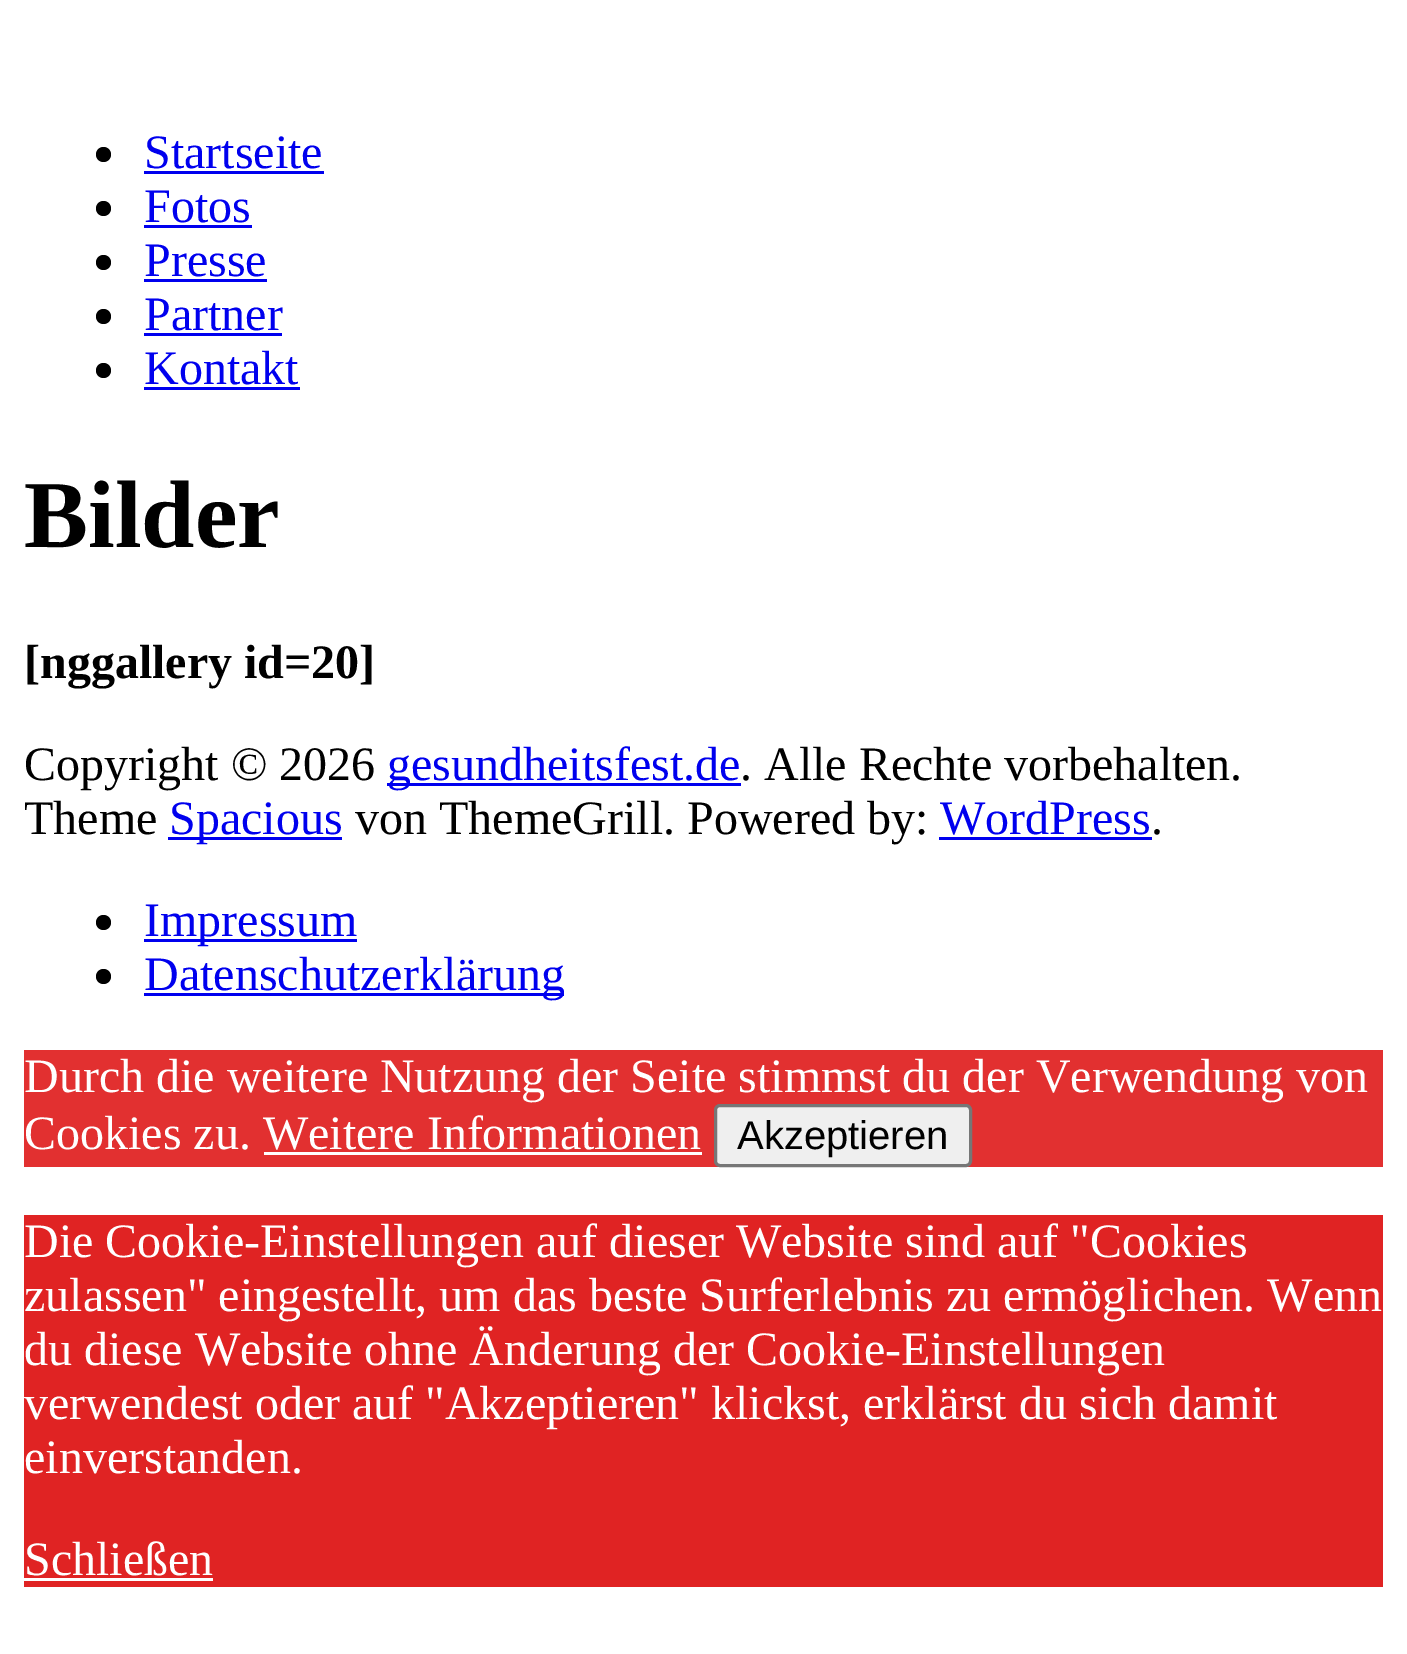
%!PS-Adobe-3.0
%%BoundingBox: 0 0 1407 1654
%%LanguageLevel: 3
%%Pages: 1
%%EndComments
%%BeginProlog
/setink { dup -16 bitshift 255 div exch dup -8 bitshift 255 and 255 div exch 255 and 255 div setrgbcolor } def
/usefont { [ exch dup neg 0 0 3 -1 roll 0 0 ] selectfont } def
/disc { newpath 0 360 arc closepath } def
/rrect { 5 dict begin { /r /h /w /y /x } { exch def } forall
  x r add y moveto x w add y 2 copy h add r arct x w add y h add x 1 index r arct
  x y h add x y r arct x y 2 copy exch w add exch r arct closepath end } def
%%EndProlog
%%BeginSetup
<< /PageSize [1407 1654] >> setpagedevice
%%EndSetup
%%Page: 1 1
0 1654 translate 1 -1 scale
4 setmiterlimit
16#FFFFFF setink
0 0 1407 1654 rectfill
16#000000 setink
103.5 154.5 7.5 disc fill
/LiberationSerif-Regular 48 usefont
16#0000EE setink
144 168 moveto (Startseite) show
144 171 180 3 rectfill
16#000000 setink
103.5 208.5 7.5 disc fill
16#0000EE setink
144 222 moveto (Fotos) show
144 225 108 3 rectfill
16#000000 setink
103.5 262.5 7.5 disc fill
16#0000EE setink
144 276 moveto (Presse) show
144 279 123 3 rectfill
16#000000 setink
103.5 316.5 7.5 disc fill
16#0000EE setink
144 330 moveto (Partner) show
144 333 138 3 rectfill
16#000000 setink
103.5 370.5 7.5 disc fill
16#0000EE setink
144 384 moveto (Kontakt) show
144 387 156 3 rectfill
/LiberationSerif-Bold 96 usefont
16#000000 setink
24 547 moveto (Bilder) show
/LiberationSerif-Bold 48 usefont
24 678 moveto ([nggallery id=20]) show
/LiberationSerif-Regular 48 usefont
24 780 moveto (Copyright © 2026) show
16#0000EE setink
387 783 354 3 rectfill
387 780 moveto (gesundheitsfest.de) show
16#000000 setink
740 780 moveto (. Alle Rechte vorbehalten.) show
24 834 moveto (Theme) show
16#0000EE setink
168 837 174 3 rectfill
169 834 moveto (Spacious) show
16#000000 setink
355 834 moveto (von ThemeGrill. Powered by:) show
16#0000EE setink
940 834 moveto (WordPress) show
939 837 213 3 rectfill
16#000000 setink
1151 834 moveto (.) show
103.5 922.5 7.5 disc fill
16#0000EE setink
144 939 213 3 rectfill
144 936 moveto (Impressum) show
16#000000 setink
103.5 976.5 7.5 disc fill
16#0000EE setink
144 993 420 3 rectfill
144 990 moveto (Datenschutzerklärung) show
16#E23030 setink
24 1050 1359 117 rectfill
16#FFFFFF setink
24 1092 moveto (Durch die weitere Nutzung der Seite stimmst du der Verwendung von) show
24 1149 moveto (Cookies zu. Weitere Informationen) show
16#EFEFEF setink
715.5 1105.5 255 60 4.5 rrect gsave fill grestore
16#767676 setink
3 setlinewidth
stroke
/LiberationSans-Regular 40 usefont
16#000000 setink
737 1149 moveto (Akzeptieren) show
16#FFFFFF setink
264 1152 438 3 rectfill
16#E02323 setink
24 1215 1359 372 rectfill
/LiberationSerif-Regular 48 usefont
16#FFFFFF setink
[
    [(Die Cookie-Einstellungen auf dieser Website sind auf "Cookies) 24 1257]
    [(zulassen" eingestellt, um das beste Surferlebnis zu ermöglichen. Wenn) 24 1311]
    [(du diese Website ohne Änderung der Cookie-Einstellungen) 24 1365]
    [(verwendest oder auf "Akzeptieren" klickst, erklärst du sich damit) 24 1419]
    [(einverstanden.) 24 1473]
    [(Schließen) 24 1575]
] { aload pop moveto show } forall
24 1578 189 3 rectfill
showpage
%%EOF
